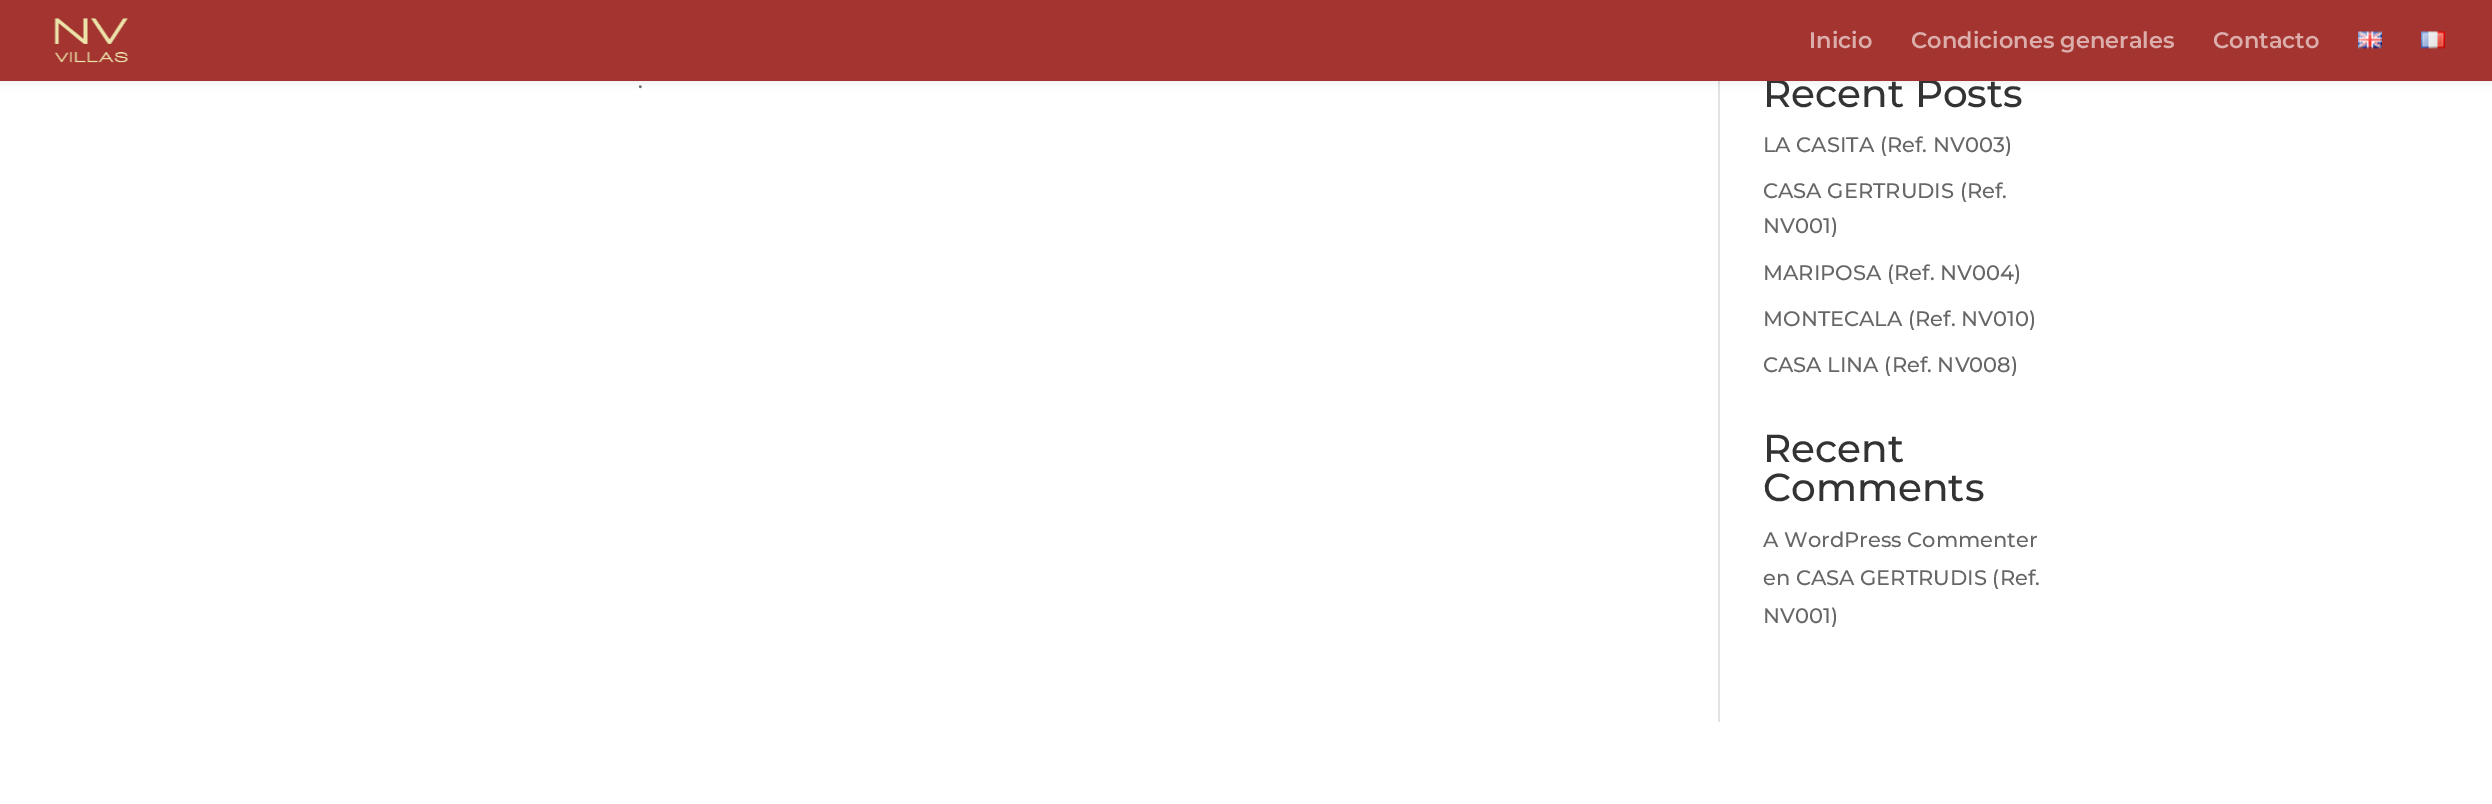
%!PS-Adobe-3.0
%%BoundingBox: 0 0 2492 804
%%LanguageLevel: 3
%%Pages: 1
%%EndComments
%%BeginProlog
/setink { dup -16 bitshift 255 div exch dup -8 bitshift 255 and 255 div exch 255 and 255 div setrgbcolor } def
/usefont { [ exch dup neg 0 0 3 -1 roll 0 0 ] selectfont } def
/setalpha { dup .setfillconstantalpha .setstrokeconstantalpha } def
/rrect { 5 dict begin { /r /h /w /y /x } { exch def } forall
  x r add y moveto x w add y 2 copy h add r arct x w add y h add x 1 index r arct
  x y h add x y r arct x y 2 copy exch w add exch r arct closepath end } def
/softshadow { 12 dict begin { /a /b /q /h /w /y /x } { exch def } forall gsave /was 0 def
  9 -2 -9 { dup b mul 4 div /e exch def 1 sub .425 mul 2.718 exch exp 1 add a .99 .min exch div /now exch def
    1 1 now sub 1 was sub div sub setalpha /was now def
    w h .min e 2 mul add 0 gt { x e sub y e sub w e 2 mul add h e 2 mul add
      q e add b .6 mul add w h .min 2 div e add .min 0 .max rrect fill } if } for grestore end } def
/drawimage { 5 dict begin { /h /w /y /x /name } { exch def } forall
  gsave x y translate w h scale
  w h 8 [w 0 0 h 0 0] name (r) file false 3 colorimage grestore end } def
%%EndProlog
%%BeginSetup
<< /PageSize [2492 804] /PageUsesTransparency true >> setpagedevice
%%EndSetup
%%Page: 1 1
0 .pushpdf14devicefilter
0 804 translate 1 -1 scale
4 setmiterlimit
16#FFFFFF setink
0 0 2492 804 rectfill
16#E2E2E2 setink
1718 81 2 641 rectfill
16#000000 setink
0 0 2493 81 0 5 0.1 softshadow
/Montserrat-Medium 39 usefont
16#333333 setink
1763 107 moveto (Recent Posts) show
16#A43430 setink
0 0 2492 81 rectfill
(img1.raw) 54 18 74 45 drawimage
/Montserrat-SemiBold 22.5 usefont
16#DBAEAC setink
[
    [(Inicio) 1809 48]
    [(Condiciones generales) 1911 48]
    [(Contacto) 2213 48]
] { aload pop moveto show } forall
(img2.raw) 2358 31 24 18 drawimage
(img3.raw) 2421 31 24 18 drawimage
/Montserrat-Medium 21 usefont
16#666666 setink
[
    [(.) 638 88]
    [(LA CASITA \(Ref. NV003\)) 1763 152]
    [(CASA GERTRUDIS \(Ref.) 1763 198]
    [(NV001\)) 1763 233]
    [(MARIPOSA \(Ref. NV004\)) 1763 280]
    [(MONTECALA \(Ref. NV010\)) 1763 326]
    [(CASA LINA \(Ref. NV008\)) 1763 372]
] { aload pop moveto show } forall
/Montserrat-Medium 39 usefont
16#333333 setink
1763 462 moveto (Recent) show
1763 501 moveto (Comments) show
/Montserrat-Medium 21 usefont
16#666666 setink
[
    [(A WordPress Commenter) 1763 547]
    [(en CASA GERTRUDIS \(Ref.) 1763 585]
    [(NV001\)) 1763 623]
] { aload pop moveto show } forall
.poppdf14devicefilter showpage
%%EOF
